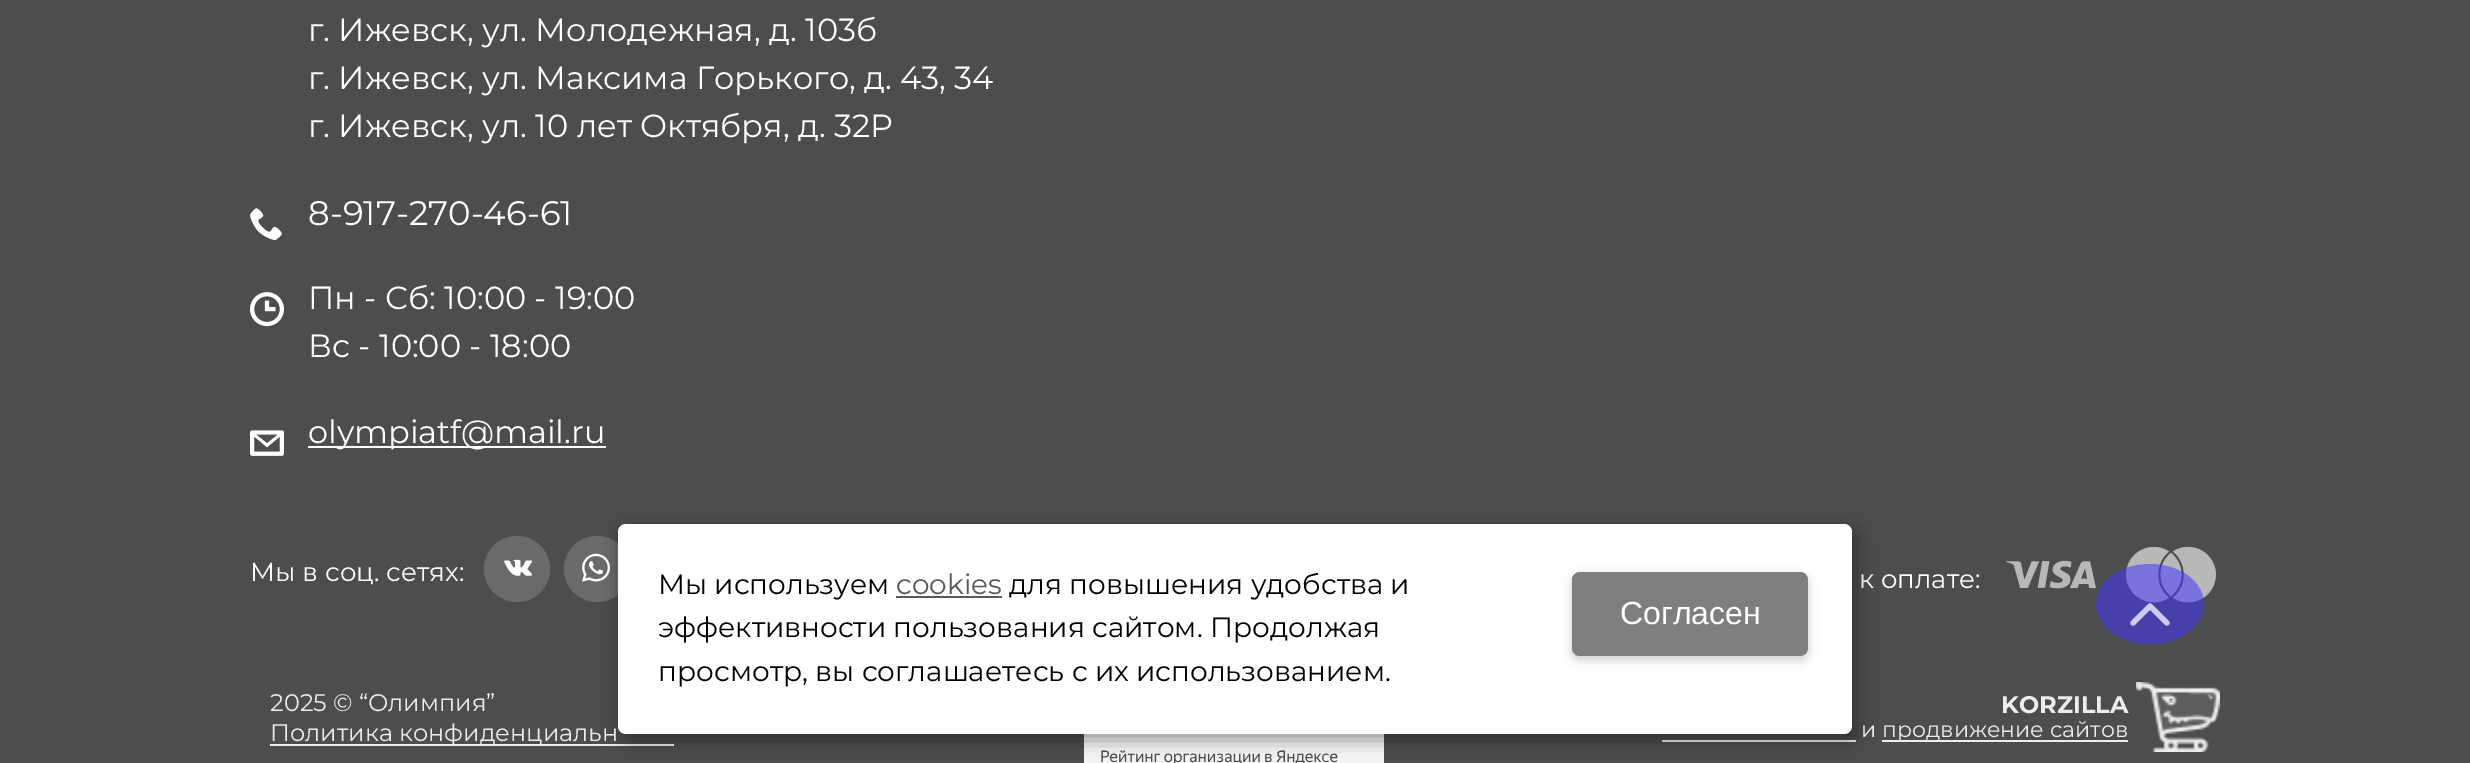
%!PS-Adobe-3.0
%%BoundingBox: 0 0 2470 763
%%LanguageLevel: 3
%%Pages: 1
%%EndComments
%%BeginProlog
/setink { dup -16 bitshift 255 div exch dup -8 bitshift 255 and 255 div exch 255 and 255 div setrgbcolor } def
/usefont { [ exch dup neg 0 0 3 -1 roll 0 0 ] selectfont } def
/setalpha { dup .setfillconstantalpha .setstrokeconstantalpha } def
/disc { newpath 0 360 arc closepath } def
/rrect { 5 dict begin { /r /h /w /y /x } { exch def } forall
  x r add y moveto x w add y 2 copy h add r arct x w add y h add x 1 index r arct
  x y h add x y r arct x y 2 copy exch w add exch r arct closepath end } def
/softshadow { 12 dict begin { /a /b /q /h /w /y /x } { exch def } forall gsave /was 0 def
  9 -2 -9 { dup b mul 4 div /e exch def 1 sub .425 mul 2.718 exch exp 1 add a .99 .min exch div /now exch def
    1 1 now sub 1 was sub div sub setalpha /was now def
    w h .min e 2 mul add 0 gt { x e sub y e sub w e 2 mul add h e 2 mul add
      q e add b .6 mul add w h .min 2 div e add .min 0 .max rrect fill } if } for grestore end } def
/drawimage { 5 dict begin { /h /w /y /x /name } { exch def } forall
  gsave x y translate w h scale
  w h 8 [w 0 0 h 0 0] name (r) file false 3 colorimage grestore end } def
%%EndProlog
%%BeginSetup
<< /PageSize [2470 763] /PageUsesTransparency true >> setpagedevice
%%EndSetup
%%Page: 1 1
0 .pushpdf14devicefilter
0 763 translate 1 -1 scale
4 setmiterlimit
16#4C4D4E setink
0 0 2470 763 rectfill
/Montserrat-Regular 32 usefont
16#FFFFFF setink
[
    [(г. Ижевск, ул. Молодежная, д. 103б) 308 41]
    [(г. Ижевск, ул. Максима Горького, д. 43, 34) 308 89]
    [(г. Ижевск, ул. 10 лет Октября, д. 32P) 308 137]
] { aload pop moveto show } forall
(img1.raw) 250 208 32 33 drawimage
/Montserrat-Regular 34 usefont
308 225 moveto (8-917-270-46-61) show
(img2.raw) 250 292 34 35 drawimage
/Montserrat-Regular 32 usefont
308 309 moveto (Пн - Сб: 10:00 - 19:00) show
308 357 moveto (Вс - 10:00 - 18:00) show
(img3.raw) 250 430 34 26 drawimage
308 446 298 2 rectfill
308 443 moveto (olympiatf@mail.ru) show
/Montserrat-Regular 26 usefont
250 581 moveto (Мы в соц. сетях:) show
16#696A6A setink
517 569 33 disc fill
(img4.raw) 504 559 29 17 drawimage
597 569 33 disc fill
(img5.raw) 582 553 28 29 drawimage
16#FFFFFF setink
1859 588 moveto (к оплате:) show
(img6.raw) 2006 560 90 29 drawimage
(img7.raw) 2126 546 90 57 drawimage
[
    [270 744 404 2 16#EDEDED]
    [1882 740 246 2 16#EDEDED]
    [1662 740 194 2 16#EDEDED]
] { aload pop setink rectfill } forall
(img10.raw) 1084 734 300 29 drawimage
16#000000 setink
622 530 1234 210 8 10 0.4 softshadow
16#FFFFFF setink
618 524 1234 210 8 rrect fill
/Montserrat-Regular 28 usefont
16#000000 setink
658 594 moveto (Мы используем) show
16#58595F setink
896 594 moveto (cookies) show
896 596 106 2 rectfill
16#000000 setink
[
    [(для повышения удобства и) 1009 594]
    [(эффективности пользования сайтом. Продолжая) 658 637]
    [(просмотр, вы соглашаетесь с их использованием.) 658 681]
] { aload pop moveto show } forall
1572 576 236 84 8 5 0.2 softshadow
16#7F7F7F setink
1572 572 236 84 8 rrect fill
/LiberationSans-Regular 32 usefont
16#FFFFFF setink
1620 624 moveto (Согласен) show
0.52 setalpha
16#4234FF setink
2150 564 moveto 2180 564 2204 582 2204 604 curveto 2204 626 2180 644 2150 644 curveto 2120 644 2096 626 2096 604 curveto 2096 582 2120 564 2150 564 curveto closepath fill
1 setalpha
(img8.raw) 2130 603 40 23 drawimage
/Montserrat-Regular 24 usefont
16#EDEDED setink
270 711 moveto (2025 © “Олимпия”) show
270 741 moveto (Политика конфиденциальн) show
(img9.raw) 2136 682 84 70 drawimage
/Montserrat-Bold 24 usefont
2001 713 moveto (KORZILLA) show
/Montserrat-Regular 22 usefont
1861 737 moveto (и) show
1882 737 moveto (продвижение сайтов) show
.poppdf14devicefilter showpage
%%EOF
